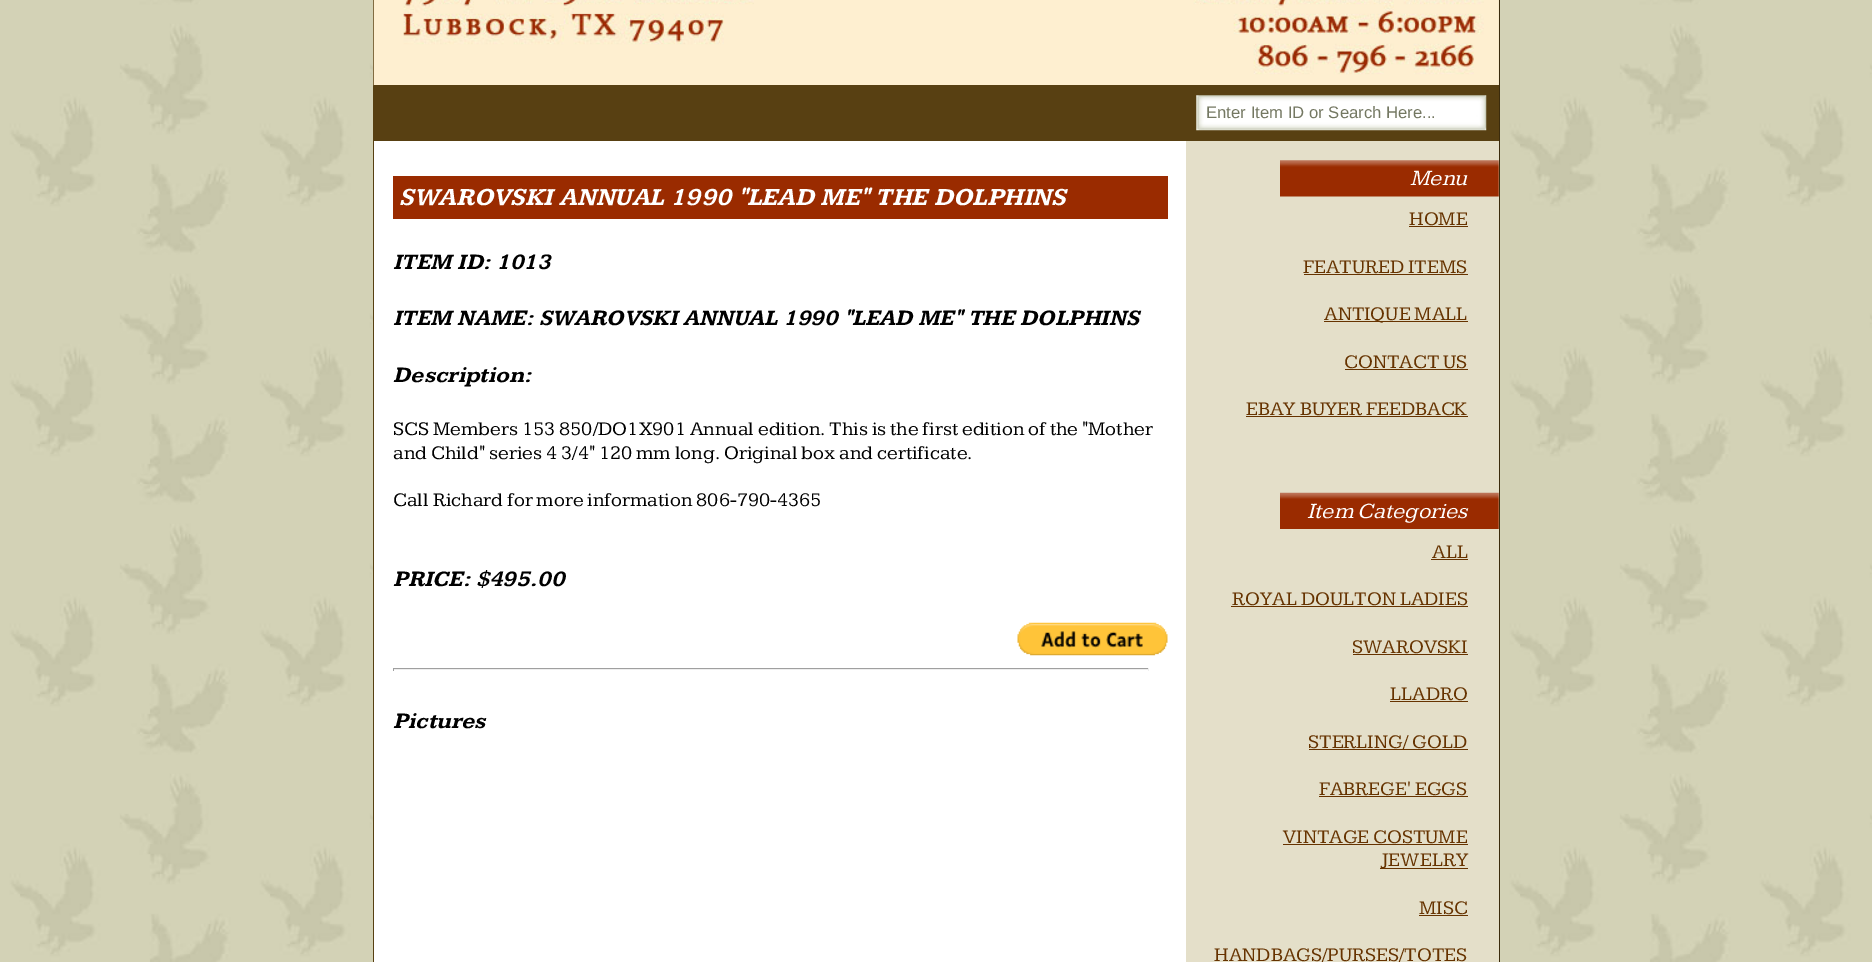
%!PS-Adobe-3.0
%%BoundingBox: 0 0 1872 962
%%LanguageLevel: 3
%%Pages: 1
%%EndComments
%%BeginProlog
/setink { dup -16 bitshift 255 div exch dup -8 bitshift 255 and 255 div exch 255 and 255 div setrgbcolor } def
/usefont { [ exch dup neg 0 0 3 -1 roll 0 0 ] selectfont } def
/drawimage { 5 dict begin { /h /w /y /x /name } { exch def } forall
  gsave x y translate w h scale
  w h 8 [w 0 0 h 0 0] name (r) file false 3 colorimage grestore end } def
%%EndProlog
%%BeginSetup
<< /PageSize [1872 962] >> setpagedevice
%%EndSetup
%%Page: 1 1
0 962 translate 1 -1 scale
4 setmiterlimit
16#FFFFFF setink
0 0 1872 962 rectfill
(img1.raw) 0 0 1872 962 drawimage
(img2.raw) 374 0 1125 962 drawimage
16#3B2B0C setink
1499 0 1 962 rectfill
16#584012 setink
373 0 1 962 rectfill
(img3.raw) 373 0 1126 86 drawimage
374 85 1125 56 rectfill
(img4.raw) 1196 95 291 36 drawimage
/LiberationSans-Regular 16.7 usefont
16#747862 setink
1206 118 moveto (Enter Item ID or Search Here...) show
16#9A2B00 setink
393 176 775 43 rectfill
/Kameron-BoldItalic 25 usefont
16#FFFFFF setink
399 205 moveto (SWAROVSKI ANNUAL 1990 "LEAD ME" THE DOLPHINS) show
/Kameron-BoldItalic 22.5 usefont
16#000000 setink
[
    [(ITEM ID: 1013) 393 269]
    [(ITEM NAME: SWAROVSKI ANNUAL 1990 "LEAD ME" THE DOLPHINS) 393 325]
    [(Description:) 393 382]
] { aload pop moveto show } forall
/Kameron-Regular 20 usefont
[
    [(SCS Members 153 850/DO1X901 Annual edition. This is the first edition of the "Mother) 393 435]
    [(and Child" series 4 3/4" 120 mm long. Original box and certificate.) 393 459]
    [(Call Richard for more information 806-790-4365) 393 506]
] { aload pop moveto show } forall
/Kameron-BoldItalic 22.5 usefont
393 586 moveto (PRICE: $495.00) show
(img5.raw) 1017 622 151 34 drawimage
[
    [393 668 756 1 16#9F9F9F]
    [1148 668 1 3 16#EEEEEE]
    [393 669 756 1 16#EEEEEE]
    [393 668 1 3 16#9F9F9F]
] { aload pop setink rectfill } forall
16#000000 setink
393 728 moveto (Pictures) show
16#E4DFC9 setink
1186 141 313 821 rectfill
(img6.raw) 1280 160 219 37 drawimage
/Kameron-Italic 22.5 usefont
16#FFFFFF setink
1410 185 moveto (Menu) show
/Kameron-Regular 20 usefont
16#663300 setink
1409 225 moveto (HOME) show
1409 226 59 1 rectfill
1303 273 moveto (FEATURED ITEMS) show
1304 274 164 1 rectfill
1324 321 144 1 rectfill
1324 320 moveto (ANTIQUE MALL) show
1344 368 moveto (CONTACT US) show
1345 369 123 1 rectfill
1246 415 moveto (EBAY BUYER FEEDBACK) show
1246 416 222 1 rectfill
(img7.raw) 1280 492 219 37 drawimage
/Kameron-Italic 22.5 usefont
16#FFFFFF setink
1307 518 moveto (Item Categories) show
/Kameron-Regular 20 usefont
16#663300 setink
1432 558 moveto (ALL) show
1431 559 37 1 rectfill
1232 605 moveto (ROYAL DOULTON LADIES) show
1231 606 237 1 rectfill
1352 653 moveto (SWAROVSKI) show
1353 654 115 1 rectfill
1390 700 moveto (LLADRO) show
1390 701 78 1 rectfill
1308 748 moveto (STERLING/ GOLD) show
1309 749 159 1 rectfill
1319 795 moveto (FABREGE' EGGS) show
1319 796 149 1 rectfill
1283 843 moveto (VINTAGE COSTUME) show
1283 844 185 1 rectfill
1380 868 88 1 rectfill
1381 866 moveto (JEWELRY) show
1419 914 moveto (MISC) show
1419 915 49 1 rectfill
1214 961 moveto (HANDBAGS/PURSES/TOTES) show
showpage
%%EOF
